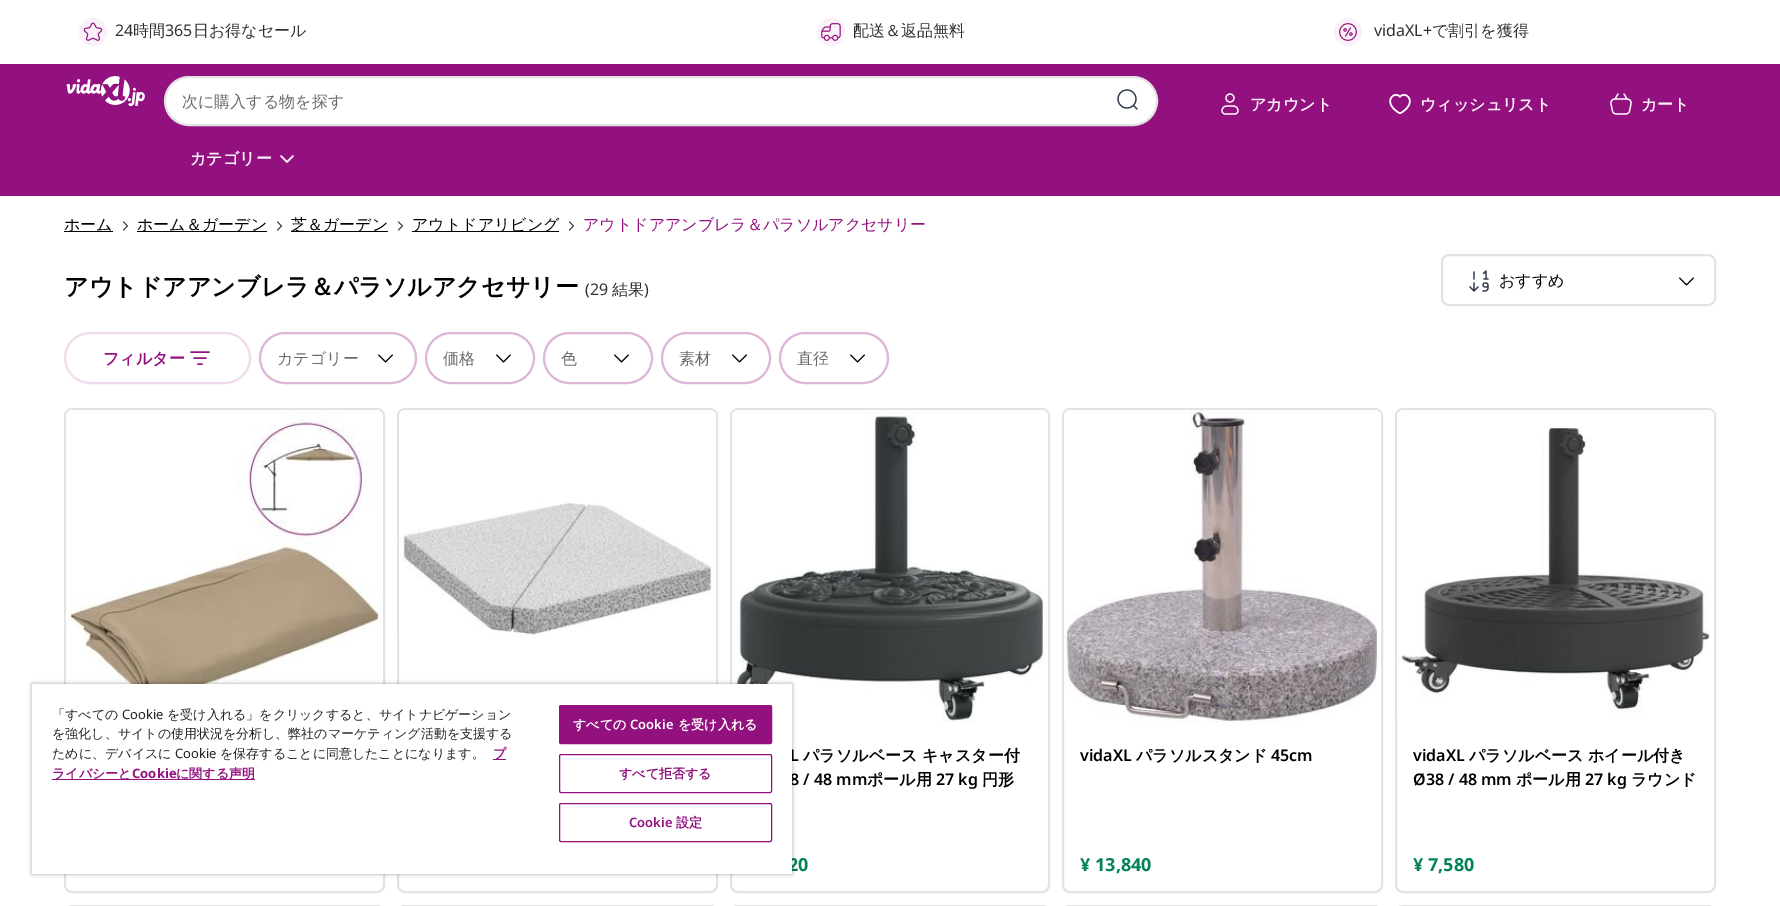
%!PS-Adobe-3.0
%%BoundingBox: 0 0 1780 906
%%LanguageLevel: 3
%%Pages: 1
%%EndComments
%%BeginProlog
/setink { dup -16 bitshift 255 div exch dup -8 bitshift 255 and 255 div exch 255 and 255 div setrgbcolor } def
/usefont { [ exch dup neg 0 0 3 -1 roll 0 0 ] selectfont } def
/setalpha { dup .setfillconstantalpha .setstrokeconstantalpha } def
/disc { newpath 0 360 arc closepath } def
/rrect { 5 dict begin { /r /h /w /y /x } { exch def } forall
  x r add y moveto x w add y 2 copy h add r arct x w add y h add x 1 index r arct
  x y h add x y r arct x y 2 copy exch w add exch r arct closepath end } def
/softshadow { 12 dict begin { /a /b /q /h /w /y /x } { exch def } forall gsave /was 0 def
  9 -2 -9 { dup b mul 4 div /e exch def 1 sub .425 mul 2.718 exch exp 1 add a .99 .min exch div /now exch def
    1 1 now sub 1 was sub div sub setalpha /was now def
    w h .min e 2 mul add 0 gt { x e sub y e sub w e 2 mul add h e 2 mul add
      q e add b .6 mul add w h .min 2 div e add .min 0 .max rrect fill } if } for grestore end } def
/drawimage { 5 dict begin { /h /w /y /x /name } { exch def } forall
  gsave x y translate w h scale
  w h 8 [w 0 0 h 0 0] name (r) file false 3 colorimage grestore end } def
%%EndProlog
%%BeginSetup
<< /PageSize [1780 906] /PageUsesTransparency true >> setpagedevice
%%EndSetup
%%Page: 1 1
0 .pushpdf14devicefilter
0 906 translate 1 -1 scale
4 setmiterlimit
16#FFFFFF setink
0 0 1780 906 rectfill
16#F9F1F7 setink
93 32 14 disc fill
(img1.raw) 83 22 20 19 drawimage
/NotoSans-Regular 16 usefont
16#313131 setink
115 36 moveto (24) show
/WenQuanYiZenHei-Medium 16 usefont
133 36 moveto (時間) show
/NotoSans-Regular 16 usefont
165 36 moveto (365) show
/WenQuanYiZenHei-Medium 16 usefont
193 36 moveto (日お得なセール) show
16#F9F1F7 setink
831 32 14 disc fill
(img2.raw) 821 23 20 18 drawimage
16#313131 setink
853 36 moveto (配送＆返品無料) show
16#F9F1F7 setink
1348 32 14 disc fill
(img3.raw) 1339 23 18 18 drawimage
/NotoSans-Regular 16 usefont
16#313131 setink
1374 36 moveto (vidaXL+) show
/WenQuanYiZenHei-Medium 16 usefont
1432 36 moveto (で割引を獲得) show
16#93117E setink
0 64 1780 132 rectfill
(img4.raw) 66 76 79 30 drawimage
16#FFFFFF setink
165 77 992 48 24 rrect gsave fill grestore
16#E3E3E3 setink
2 setlinewidth
stroke
16#6A6A6A setink
182 107 moveto (次に購入する物を探す) show
(img5.raw) 1117 89 21 21 drawimage
/WenQuanYiZenHei-Bold 16 usefont
16#F9F1F7 setink
190 164 moveto (カテゴリー) show
1.5 setlinewidth
1 setlinecap
1 setlinejoin
293 156 moveto 287 162 lineto 281 156 lineto stroke
(img6.raw) 1221 93 18 22 drawimage
1250 110 moveto (アカウント) show
16#FFFFFF setink
1400 113 moveto 1401.5 113 1404.5 110.5 1405.5 109.5 curveto 1416.5 99.5 1404 90.5 1400 97 curveto 1396 90.5 1383.5 99.5 1394.5 109.5 curveto 1395.5 110.5 1398.5 113 1400 113 curveto closepath stroke
16#F9F1F7 setink
1420 110 moveto (ウィッシュリスト) show
(img7.raw) 1610 93 22 22 drawimage
1641 110 moveto (カート) show
16#000000 setink
64 231 49 1 rectfill
/WenQuanYiZenHei-Medium 16 usefont
64 230 moveto (ホーム) show
16#2F384C setink
1 setlinewidth
123.5 222 moveto 127.5 226 lineto 123.5 230 lineto stroke
16#000000 setink
137 231 130 1 rectfill
137 230 moveto (ホーム＆ガーデン) show
16#2F384C setink
277.5 222 moveto 281.5 226 lineto 277.5 230 lineto stroke
16#000000 setink
291 231 97 1 rectfill
291 230 moveto (芝＆ガーデン) show
16#2F384C setink
398.5 222 moveto 402.5 226 lineto 398.5 230 lineto stroke
16#000000 setink
412 231 147 1 rectfill
412 230 moveto (アウトドアリビング) show
16#2F384C setink
569.5 222 moveto 573.5 226 lineto 569.5 230 lineto stroke
16#93117E setink
583 230 moveto (アウトドアアンブレラ＆パラソルアクセサリー) show
/WenQuanYiZenHei-Bold 24 usefont
16#000000 setink
64 295 moveto (アウトドアアンブレラ＆パラソルアクセサリー) show
/NotoSans-Regular 16 usefont
16#313131 setink
585 295 moveto (\(29) show
/WenQuanYiZenHei-Medium 16 usefont
612 295 moveto (結果) show
/NotoSans-Regular 16 usefont
644 295 moveto (\)) show
16#E3E3E3 setink
2 setlinewidth
0 setlinecap
0 setlinejoin
1442 255 273 50 7 rrect stroke
(img8.raw) 1469 270 20 22 drawimage
/WenQuanYiZenHei-Medium 16 usefont
16#000000 setink
1499 286 moveto (おすすめ) show
(img9.raw) 1679 277 15 9 drawimage
16#EFDBEC setink
65 333 185 50 25 rrect stroke
/WenQuanYiZenHei-Bold 16 usefont
16#93117E setink
103 364 moveto (フィルター) show
1.5 setlinewidth
1 setlinecap
191 352 moveto 209 352 lineto 194 358 moveto 206 358 lineto 198 364 moveto 202 364 lineto stroke
16#DEB5D7 setink
2 setlinewidth
0 setlinecap
260 333 156 50 25 rrect stroke
/WenQuanYiZenHei-Medium 16 usefont
16#6A6A6A setink
277 364 moveto (カテゴリー) show
(img9.raw) 378 354 15 9 drawimage
16#DEB5D7 setink
426 333 108 50 25 rrect stroke
16#6A6A6A setink
443 364 moveto (価格) show
(img9.raw) 496 354 15 9 drawimage
16#DEB5D7 setink
544 333 108 50 25 rrect stroke
16#6A6A6A setink
561 364 moveto (色) show
(img9.raw) 614 354 15 9 drawimage
16#DEB5D7 setink
662 333 108 50 25 rrect stroke
16#6A6A6A setink
679 364 moveto (素材) show
(img9.raw) 732 354 15 9 drawimage
16#DEB5D7 setink
780 333 108 50 25 rrect stroke
16#6A6A6A setink
797 364 moveto (直径) show
(img9.raw) 850 354 15 9 drawimage
16#E3E3E3 setink
65 409 319 483 7 rrect stroke
(img10.raw) 66 410 317 274 drawimage
398 409 319 483 7 rrect stroke
(img11.raw) 399 410 317 228 drawimage
731 409 318 483 7 rrect stroke
(img12.raw) 732 410 316 313 drawimage
/NotoSans-SemiBold 16 usefont
16#000000 setink
790 761 moveto (L) show
/WenQuanYiZenHei-Bold 16 usefont
803 761 moveto (パラソルベース キャスター付) show
/NotoSans-SemiBold 16 usefont
790 785 moveto (8 / 48 mm) show
/WenQuanYiZenHei-Bold 16 usefont
867 785 moveto (ポール用) show
/NotoSans-SemiBold 16 usefont
936 785 moveto (27 kg) show
/WenQuanYiZenHei-Bold 16 usefont
982 785 moveto (円形) show
/NotoSans-Bold 18 usefont
16#048259 setink
788 871 moveto (20) show
16#E3E3E3 setink
1063 409 319 483 7 rrect stroke
(img13.raw) 1064 410 317 313 drawimage
/NotoSans-SemiBold 16 usefont
16#000000 setink
1080 761 moveto (vidaXL) show
/WenQuanYiZenHei-Bold 16 usefont
1136 761 moveto (パラソルスタンド) show
/NotoSans-SemiBold 16 usefont
1271 761 moveto (45cm) show
/NotoSans-Bold 18 usefont
16#048259 setink
1080 871 moveto (¥ 13,840) show
16#E3E3E3 setink
1396 409 319 483 7 rrect stroke
(img14.raw) 1397 410 317 304 drawimage
/NotoSans-SemiBold 16 usefont
16#000000 setink
1413 761 moveto (vidaXL) show
/WenQuanYiZenHei-Bold 16 usefont
1469 761 moveto (パラソルベース ホイール付き) show
/NotoSans-SemiBold 16 usefont
1413 785 moveto (Ø38 / 48 mm) show
/WenQuanYiZenHei-Bold 16 usefont
1516 785 moveto (ポール用) show
/NotoSans-SemiBold 16 usefont
1585 785 moveto (27 kg) show
/WenQuanYiZenHei-Bold 16 usefont
1631 785 moveto (ラウンド) show
/NotoSans-Bold 18 usefont
16#048259 setink
1413 871 moveto (¥ 7,580) show
16#E3E3E3 setink
65 906 319 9 7 rrect stroke
398 906 319 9 7 rrect stroke
731 906 318 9 7 rrect stroke
1063 906 319 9 7 rrect stroke
1396 906 319 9 7 rrect stroke
16#000000 setink
32 684 760 190 0 2 0.35 softshadow
16#FFFFFF setink
32 684 760 190 rectfill
/WenQuanYiZenHei-Medium 13 usefont
16#232323 setink
52 719 moveto (「すべての) show
/NotoSans-Regular 13 usefont
122 719 moveto (Cookie) show
/WenQuanYiZenHei-Medium 13 usefont
[
    [(を受け入れる」をクリックすると、サイトナビゲーション) 167 719]
    [(を強化し、サイトの使用状況を分析し、弊社のマーケティング活動を支援する) 52 738]
    [(ために、デバイスに) 52 758]
] { aload pop moveto show } forall
/NotoSans-Regular 13 usefont
175 758 moveto (Cookie) show
/WenQuanYiZenHei-Medium 13 usefont
220 758 moveto (を保存することに同意したことになります。) show
16#93117E setink
493 759 13 1 rectfill
/WenQuanYiZenHei-Bold 13 usefont
493 758 moveto (プ) show
52 779 203 1 rectfill
52 778 moveto (ライバシーと) show
/NotoSans-Bold 13 usefont
132 778 moveto (Cookie) show
/WenQuanYiZenHei-Bold 13 usefont
176 778 moveto (に関する声明) show
559.5 705.5 212 38 1.5 rrect gsave fill grestore
1 setlinewidth
stroke
16#FFFFFF setink
573 729 moveto (すべての) show
/NotoSans-SemiBold 13 usefont
630 729 moveto (Cookie) show
/WenQuanYiZenHei-Bold 13 usefont
678 729 moveto (を受け入れる) show
16#93117E setink
559.5 754.5 212 38 1.5 rrect stroke
619 778 moveto (すべて拒否する) show
559.5 803.5 212 38 1.5 rrect stroke
/NotoSans-SemiBold 13 usefont
629 827 moveto (Cookie) show
/WenQuanYiZenHei-Bold 13 usefont
676 827 moveto (設定) show
.poppdf14devicefilter showpage
%%EOF
